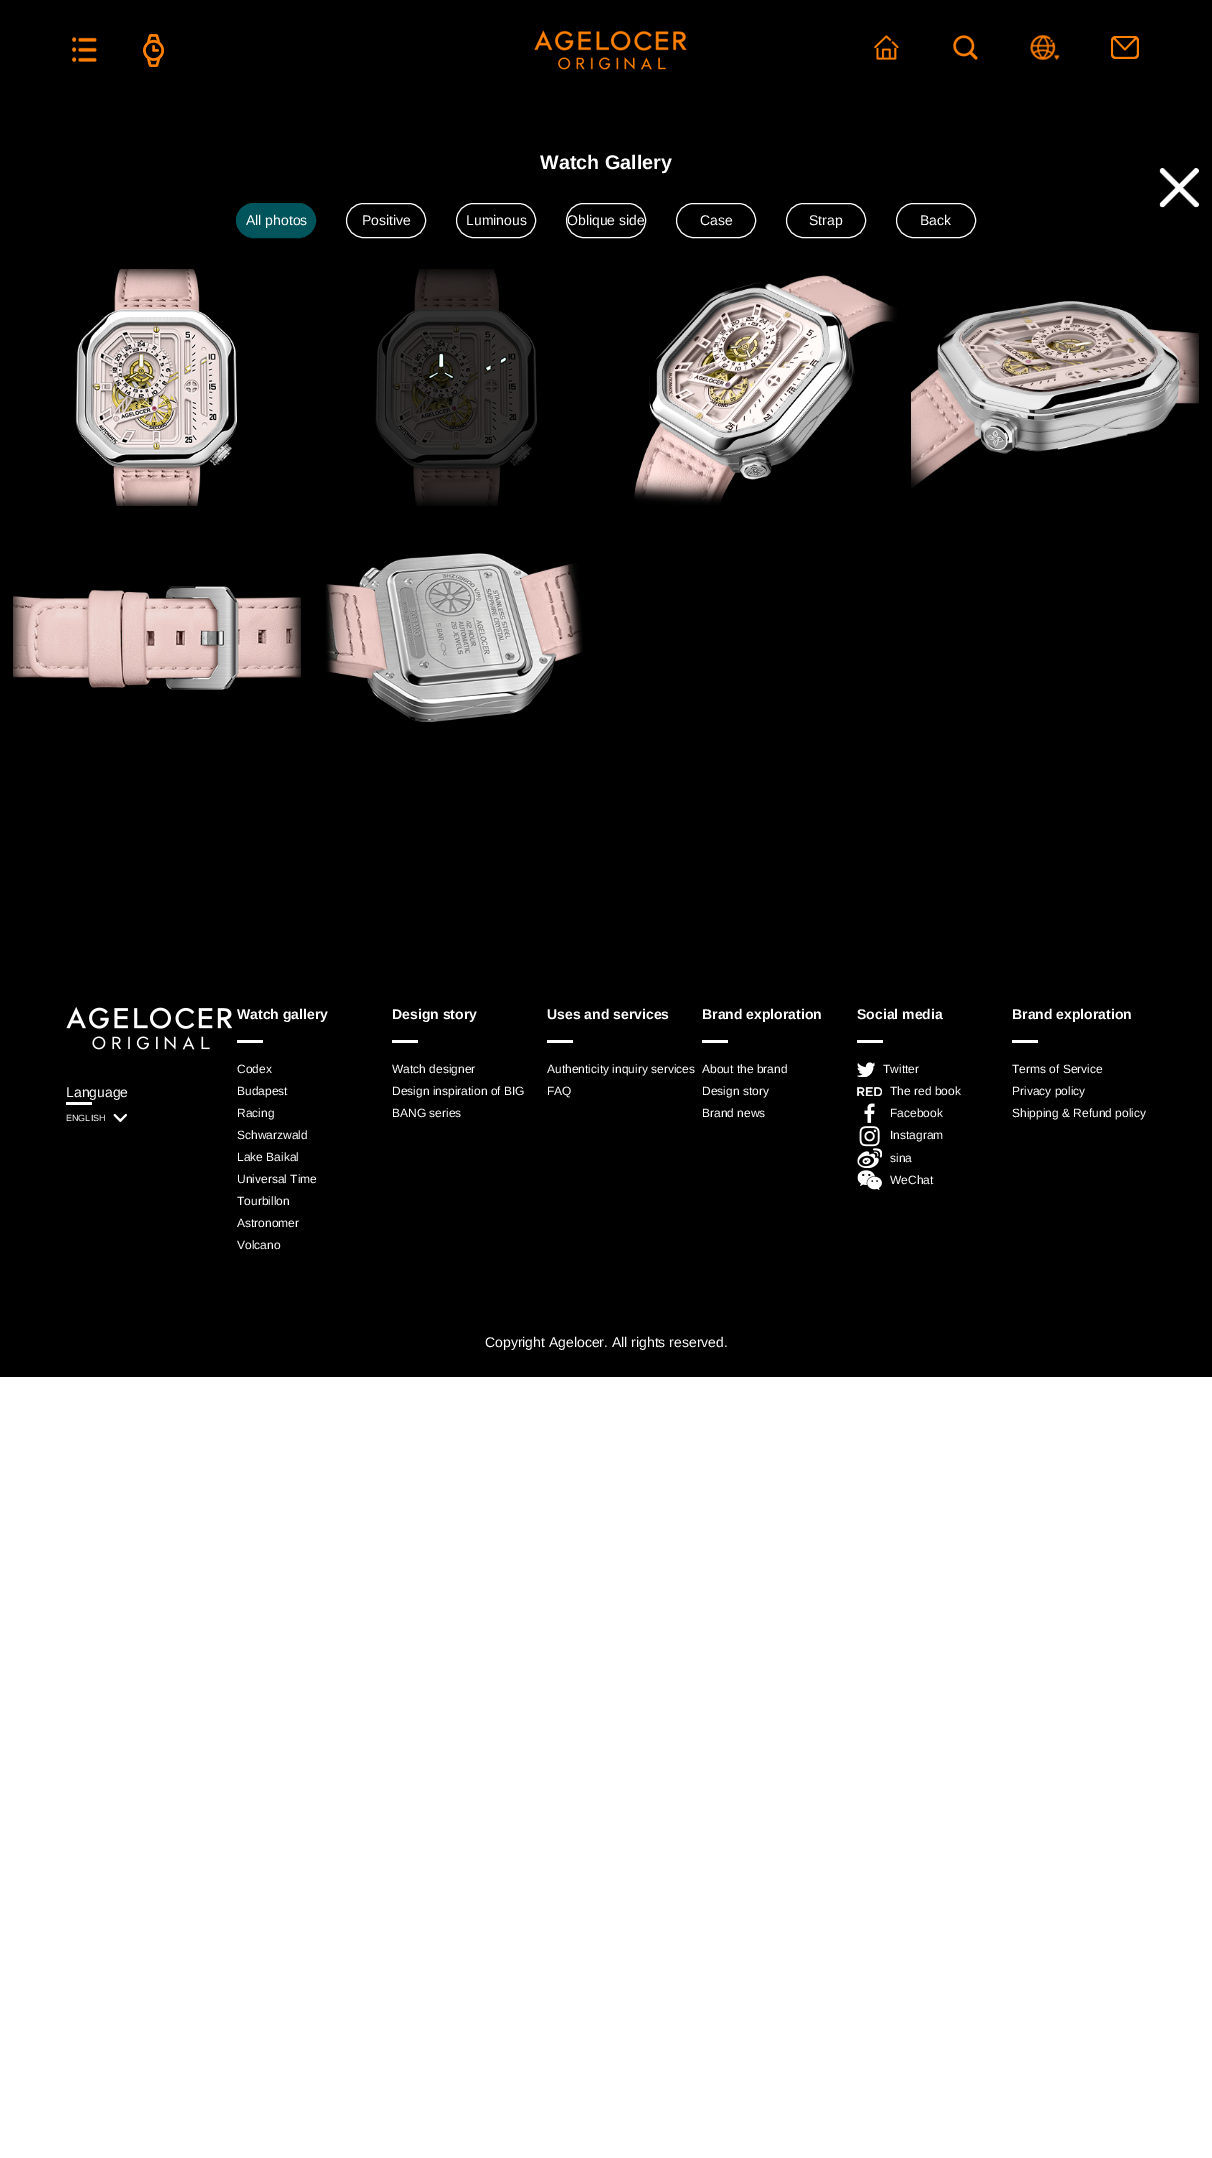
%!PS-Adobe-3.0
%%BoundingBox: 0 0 1212 2158
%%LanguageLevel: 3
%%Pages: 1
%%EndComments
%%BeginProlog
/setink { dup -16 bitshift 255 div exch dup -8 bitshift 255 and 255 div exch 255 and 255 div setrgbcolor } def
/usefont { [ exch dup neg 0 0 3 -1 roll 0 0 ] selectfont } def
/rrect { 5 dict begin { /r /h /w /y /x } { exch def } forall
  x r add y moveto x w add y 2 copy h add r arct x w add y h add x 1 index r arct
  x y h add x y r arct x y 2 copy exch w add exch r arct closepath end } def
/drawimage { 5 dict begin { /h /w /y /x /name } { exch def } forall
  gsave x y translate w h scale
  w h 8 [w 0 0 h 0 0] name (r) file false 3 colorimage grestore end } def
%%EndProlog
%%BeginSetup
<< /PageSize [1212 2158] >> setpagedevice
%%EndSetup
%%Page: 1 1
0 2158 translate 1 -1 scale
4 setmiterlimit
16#FFFFFF setink
0 0 1212 2158 rectfill
16#000000 setink
0 0 1212 1377 rectfill
(img1.raw) 72 37 25 5 drawimage
(img1.raw) 72 47 25 5 drawimage
(img1.raw) 72 57 25 5 drawimage
(img2.raw) 143 34 21 33 drawimage
(img3.raw) 534 30 153 40 drawimage
(img4.raw) 874 35 25 25 drawimage
(img5.raw) 953 35 25 25 drawimage
(img6.raw) 1030 35 30 25 drawimage
(img7.raw) 1111 36 28 23 drawimage
/LiberationSans-Bold 19.75 usefont
16#FFFFFF setink
540 169 moveto (Watch Gallery) show
(img8.raw) 1159 168 40 40 drawimage
16#00545C setink
236.5 203.5 79 34 17 rrect gsave fill grestore
stroke
/LiberationSans-Regular 14 usefont
16#FFFFFF setink
246 225 moveto (All photos) show
346.5 203.5 79 34 17 rrect stroke
362 225 moveto (Positive) show
456.5 203.5 79 34 17 rrect stroke
466 225 moveto (Luminous) show
566.5 203.5 79 34 17 rrect stroke
567 225 moveto (Oblique side) show
676.5 203.5 79 34 17 rrect stroke
700 225 moveto (Case) show
786.5 203.5 79 34 17 rrect stroke
809 225 moveto (Strap) show
896.5 203.5 79 34 17 rrect stroke
920 225 moveto (Back) show
(img9.raw) 75 269 162 237 drawimage
(img10.raw) 375 269 162 237 drawimage
(img11.raw) 634 275 263 230 drawimage
(img12.raw) 911 301 288 188 drawimage
(img13.raw) 13 586 288 104 drawimage
(img14.raw) 325 553 258 169 drawimage
(img15.raw) 66 1007 166 43 drawimage
66 1097 moveto (Language) show
66 1102 26 3 rectfill
/LiberationSans-Regular 9 usefont
66 1121 moveto (ENGLISH) show
(img16.raw) 113 1114 14 8 drawimage
/LiberationSans-Bold 14 usefont
237 1019 moveto (Watch gallery) show
237 1040 26 3 rectfill
/LiberationSans-Regular 12 usefont
[
    [(Codex) 237 1073]
    [(Budapest) 237 1095]
    [(Racing) 237 1117]
    [(Schwarzwald) 237 1139]
    [(Lake Baikal) 237 1161]
    [(Universal Time) 237 1183]
    [(Tourbillon) 237 1205]
    [(Astronomer) 237 1227]
    [(Volcano) 237 1249]
] { aload pop moveto show } forall
/LiberationSans-Bold 14 usefont
392 1019 moveto (Design story) show
392 1040 26 3 rectfill
/LiberationSans-Regular 12 usefont
[
    [(Watch designer) 392 1073]
    [(Design inspiration of BIG) 392 1095]
    [(BANG series) 392 1117]
] { aload pop moveto show } forall
/LiberationSans-Bold 14 usefont
547 1019 moveto (Uses and services) show
547 1040 26 3 rectfill
/LiberationSans-Regular 12 usefont
547 1073 moveto (Authenticity inquiry services) show
547 1095 moveto (FAQ) show
/LiberationSans-Bold 14 usefont
702 1019 moveto (Brand exploration) show
702 1040 26 3 rectfill
/LiberationSans-Regular 12 usefont
[
    [(About the brand) 702 1073]
    [(Design story) 702 1095]
    [(Brand news) 702 1117]
] { aload pop moveto show } forall
/LiberationSans-Bold 14 usefont
857 1019 moveto (Social media) show
857 1040 26 3 rectfill
(img17.raw) 857 1062 18 15 drawimage
/LiberationSans-Regular 12 usefont
883 1073 moveto (Twitter) show
(img18.raw) 857 1087 25 9 drawimage
890 1095 moveto (The red book) show
(img19.raw) 864 1103 11 20 drawimage
890 1117 moveto (Facebook) show
(img20.raw) 859 1126 21 21 drawimage
890 1139 moveto (Instagram) show
(img21.raw) 857 1148 25 21 drawimage
890 1162 moveto (sina) show
(img22.raw) 857 1170 25 20 drawimage
890 1184 moveto (WeChat) show
/LiberationSans-Bold 14 usefont
1012 1019 moveto (Brand exploration) show
1012 1040 26 3 rectfill
/LiberationSans-Regular 12 usefont
[
    [(Terms of Service) 1012 1073]
    [(Privacy policy) 1012 1095]
    [(Shipping & Refund policy) 1012 1117]
] { aload pop moveto show } forall
/LiberationSans-Regular 14 usefont
485 1347 moveto (Copyright Agelocer. All rights reserved.) show
showpage
%%EOF
